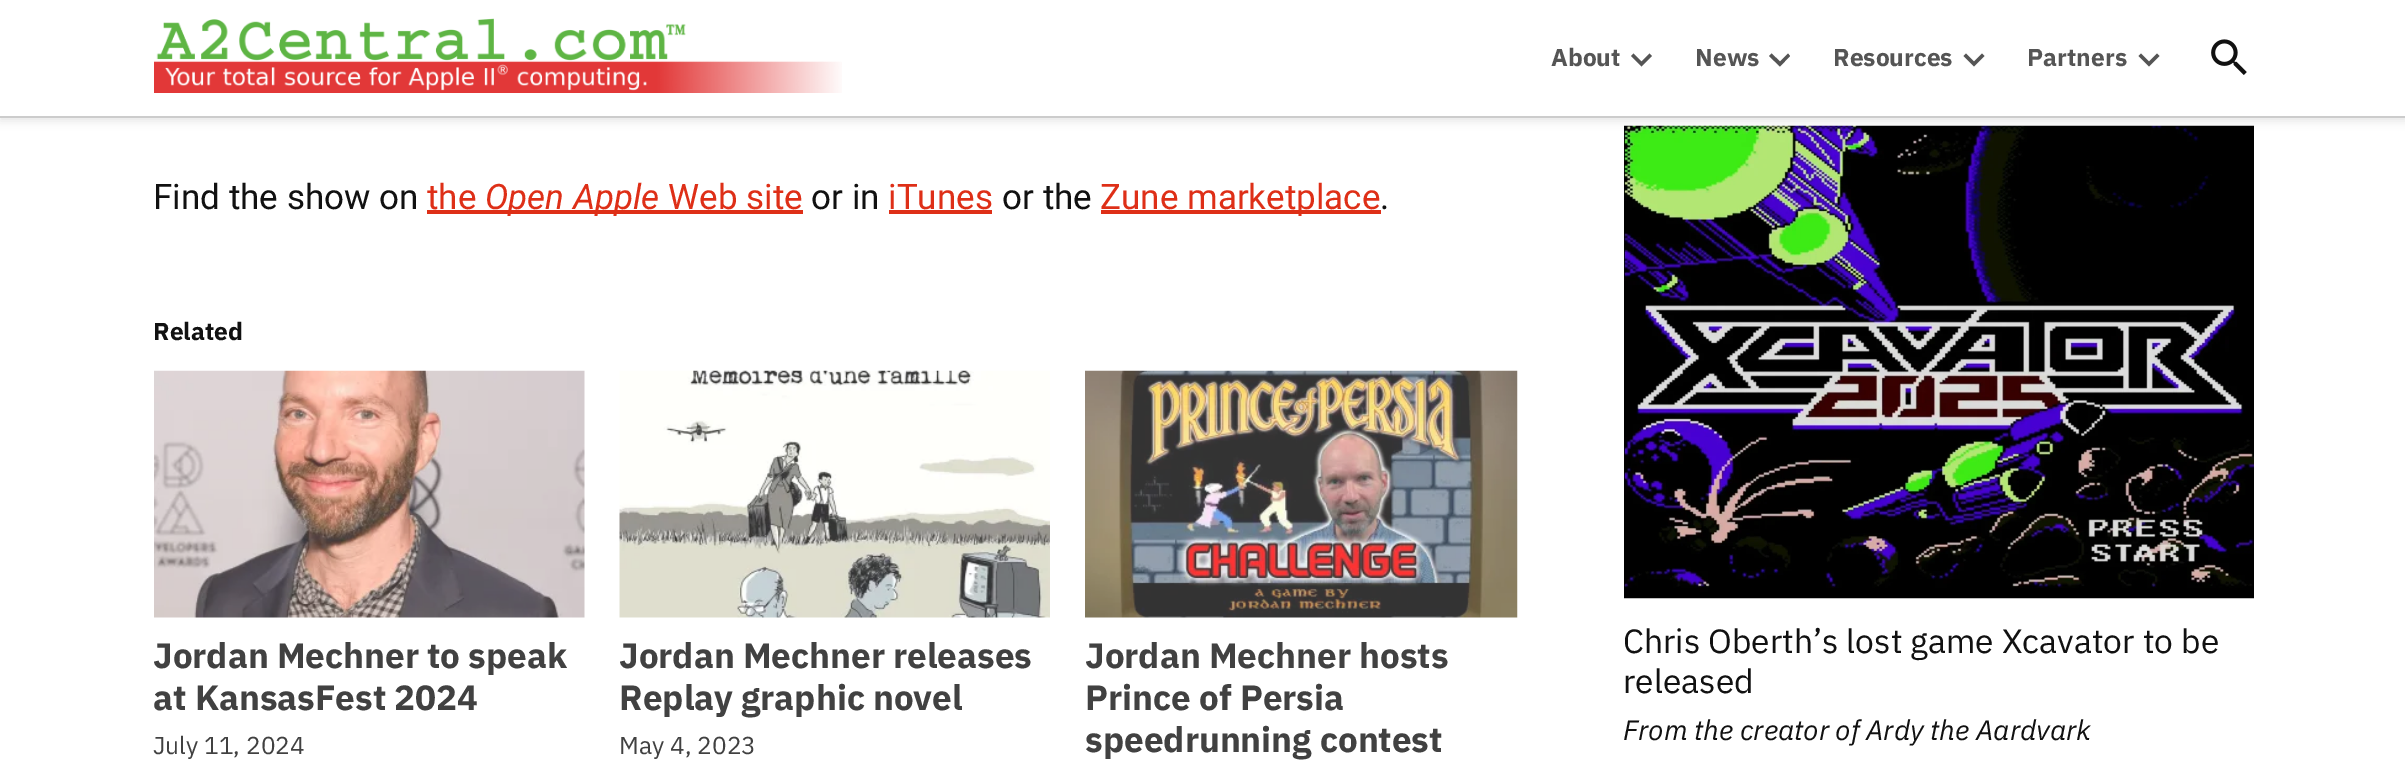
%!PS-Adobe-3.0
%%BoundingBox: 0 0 2405 767
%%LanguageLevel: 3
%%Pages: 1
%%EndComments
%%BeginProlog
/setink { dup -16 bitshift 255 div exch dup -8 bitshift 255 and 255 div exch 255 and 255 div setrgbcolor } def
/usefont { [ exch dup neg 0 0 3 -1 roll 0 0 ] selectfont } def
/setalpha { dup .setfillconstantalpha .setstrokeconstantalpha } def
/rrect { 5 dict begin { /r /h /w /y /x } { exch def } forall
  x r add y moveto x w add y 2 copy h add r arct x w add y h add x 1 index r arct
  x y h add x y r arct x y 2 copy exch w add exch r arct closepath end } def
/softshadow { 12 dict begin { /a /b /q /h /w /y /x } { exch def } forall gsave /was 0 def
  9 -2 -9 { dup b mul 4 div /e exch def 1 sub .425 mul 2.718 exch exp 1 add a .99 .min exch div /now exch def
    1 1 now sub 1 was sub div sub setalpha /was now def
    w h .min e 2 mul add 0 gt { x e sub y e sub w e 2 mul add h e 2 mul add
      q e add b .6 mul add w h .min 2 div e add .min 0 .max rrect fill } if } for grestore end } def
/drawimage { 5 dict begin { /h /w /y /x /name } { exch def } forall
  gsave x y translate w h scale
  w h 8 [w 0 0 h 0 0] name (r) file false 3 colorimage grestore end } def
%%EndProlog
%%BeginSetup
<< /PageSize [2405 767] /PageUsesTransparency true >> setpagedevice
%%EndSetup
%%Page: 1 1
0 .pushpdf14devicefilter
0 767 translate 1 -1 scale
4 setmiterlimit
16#FFFFFF setink
0 0 2405 767 rectfill
(img6.raw) 1624 125 630 474 drawimage
16#000000 setink
0 4 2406 117 0 4.5 0.1 softshadow
16#FFFFFF setink
0 0 2405 116 rectfill
16#CCCCCC setink
0 116 2405 2 rectfill
(img1.raw) 154 18 688 75 drawimage
/IBMPlexSans-Bold 24.5 usefont
16#555555 setink
1551 66 moveto (About) show
1633.5 53.5 moveto 1641.5 61.5 lineto 1649.5 53.5 lineto 1652 56 lineto 1641.5 66.5 lineto 1631 56 lineto closepath fill
1695 66 moveto (News) show
1771.5 53.5 moveto 1780 61.5 lineto 1788 53.5 lineto 1790 56 lineto 1780 66.5 lineto 1769 56 lineto closepath fill
1833 66 moveto (Resources) show
1966 53.5 moveto 1974 61.5 lineto 1982 53.5 lineto 1984.5 56 lineto 1974 66.5 lineto 1963.5 56 lineto closepath fill
2027 66 moveto (Partners) show
2141 53.5 moveto 2149 61.5 lineto 2157 53.5 lineto 2159.5 56 lineto 2149 66.5 lineto 2138.5 56 lineto closepath fill
(img2.raw) 2211 39 36 36 drawimage
/Roboto-Regular 35 usefont
16#111111 setink
153 209 moveto (Find the show on) show
16#DE2F17 setink
427 209 moveto (the) show
427 210 376 4 rectfill
/Roboto-Italic 35 usefont
485 209 moveto (Open Apple) show
/Roboto-Regular 35 usefont
668 209 moveto (Web site) show
16#111111 setink
811 209 moveto (or in) show
16#DE2F17 setink
888 209 moveto (iTunes) show
889 210 103 4 rectfill
16#111111 setink
1002 209 moveto (or the) show
16#DE2F17 setink
1101 210 280 4 rectfill
1100 209 moveto (Zune marketplace) show
16#111111 setink
1380 209 moveto (.) show
/IBMPlexSans-Bold 24.5 usefont
153 340 moveto (Related) show
(img3.raw) 154 370 431 248 drawimage
/IBMPlexSans-Bold 35 usefont
16#414141 setink
153 668 moveto (Jordan Mechner to speak) show
153 710 moveto (at KansasFest 2024) show
/IBMPlexSans-Regular 24.5 usefont
153 754 moveto (July 11, 2024) show
(img4.raw) 619 370 431 248 drawimage
/IBMPlexSans-Bold 35 usefont
619 668 moveto (Jordan Mechner releases) show
619 710 moveto (Replay graphic novel) show
/IBMPlexSans-Regular 24.5 usefont
619 754 moveto (May 4, 2023) show
(img5.raw) 1085 370 433 248 drawimage
/IBMPlexSans-Bold 35 usefont
[
    [(Jordan Mechner hosts) 1085 668]
    [(Prince of Persia) 1085 710]
    [(speedrunning contest) 1085 752]
] { aload pop moveto show } forall
/IBMPlexSans-Regular 33.6 usefont
16#111111 setink
1623 653 moveto (Chris Oberth’s lost game Xcavator to be) show
1623 693 moveto (released) show
/IBMPlexSans-Italic 28 usefont
1623 740 moveto (From the creator of Ardy the Aardvark) show
.poppdf14devicefilter showpage
%%EOF
